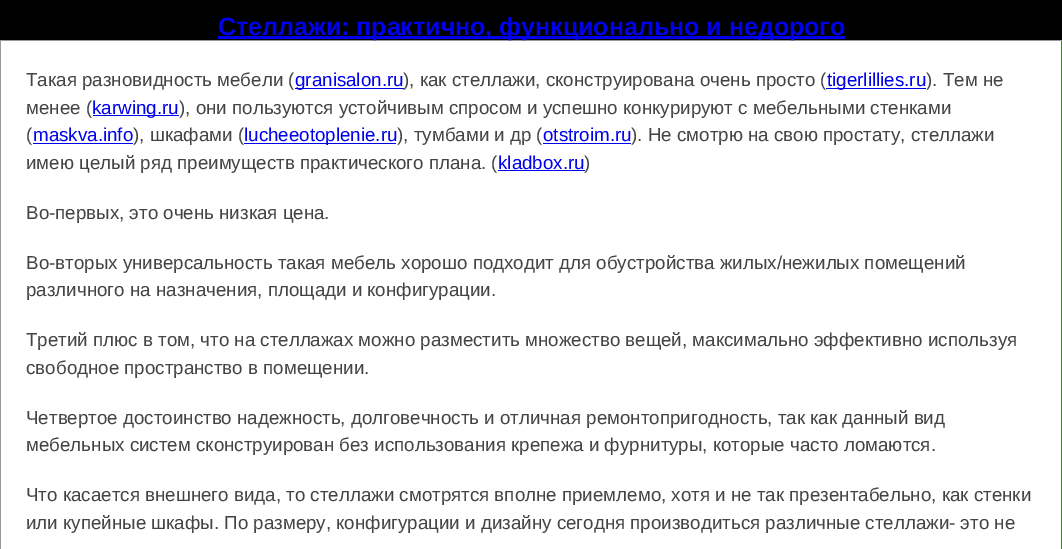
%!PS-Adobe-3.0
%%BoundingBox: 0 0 1062 549
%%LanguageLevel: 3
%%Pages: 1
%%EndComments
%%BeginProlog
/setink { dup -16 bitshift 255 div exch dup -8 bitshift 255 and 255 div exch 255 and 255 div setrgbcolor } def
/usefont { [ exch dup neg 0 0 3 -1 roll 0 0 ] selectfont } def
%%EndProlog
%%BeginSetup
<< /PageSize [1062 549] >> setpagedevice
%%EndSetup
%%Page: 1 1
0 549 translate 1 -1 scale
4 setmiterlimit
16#000000 setink
0 0 1062 549 rectfill
16#0000EE setink
218 36 627 3 rectfill
16#447832 setink
1061 41 1 508 rectfill
16#999999 setink
0.5 40.5 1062 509 rectstroke
/LiberationSans-Bold 25 usefont
16#0000EE setink
218 35 moveto (Стеллажи: практично, функционально и недорого) show
16#FFFFFF setink
1 41 1060 508 rectfill
/LiberationSans-Regular 18.75 usefont
16#444444 setink
26 86 moveto (Такая разновидность мебели \() show
16#0000EE setink
295 88 109 1 rectfill
295 86 moveto (granisalon.ru) show
16#444444 setink
403 86 moveto (\), как стеллажи, сконструирована очень просто \() show
16#0000EE setink
826 88 100 1 rectfill
827 86 moveto (tigerlillies.ru) show
16#444444 setink
926 86 moveto (\). Тем не) show
26 114 moveto (менее \() show
16#0000EE setink
93 115 86 1 rectfill
92 114 moveto (karwing.ru) show
16#444444 setink
179 114 moveto (\), они пользуются устойчивым спросом и успешно конкурируют с мебельными стенками) show
26 141 moveto (\() show
16#0000EE setink
33 141 moveto (maskva.info) show
33 143 100 1 rectfill
16#444444 setink
133 141 moveto (\), шкафами \() show
16#0000EE setink
244 143 152 1 rectfill
244 141 moveto (lucheeotoplenie.ru) show
16#444444 setink
397 141 moveto (\), тумбами и др \() show
16#0000EE setink
543 141 moveto (otstroim.ru) show
543 143 88 1 rectfill
16#444444 setink
631 141 moveto (\). Не смотрю на свою простату, стеллажи) show
26 169 moveto (имею целый ряд преимуществ практического плана. \() show
16#0000EE setink
498 169 moveto (kladbox.ru) show
498 170 87 1 rectfill
16#444444 setink
[
    [(\)) 584 169]
    [(Во-первых, это очень низкая цена.) 26 219]
    [(Во-вторых универсальность такая мебель хорошо подходит для обустройства жилых/нежилых помещений) 26 269]
    [(различного на назначения, площади и конфигурации.) 26 296]
    [(Третий плюс в том, что на стеллажах можно разместить множество вещей, максимально эффективно используя) 26 346]
    [(свободное пространство в помещении.) 26 374]
    [(Четвертое достоинство надежность, долговечность и отличная ремонтопригодность, так как данный вид) 26 424]
    [(мебельных систем сконструирован без использования крепежа и фурнитуры, которые часто ломаются.) 26 451]
    [(Что касается внешнего вида, то стеллажи смотрятся вполне приемлемо, хотя и не так презентабельно, как стенки) 26 501]
    [(или купейные шкафы. По размеру, конфигурации и дизайну сегодня производиться различные стеллажи- это не) 26 529]
] { aload pop moveto show } forall
showpage
%%EOF
